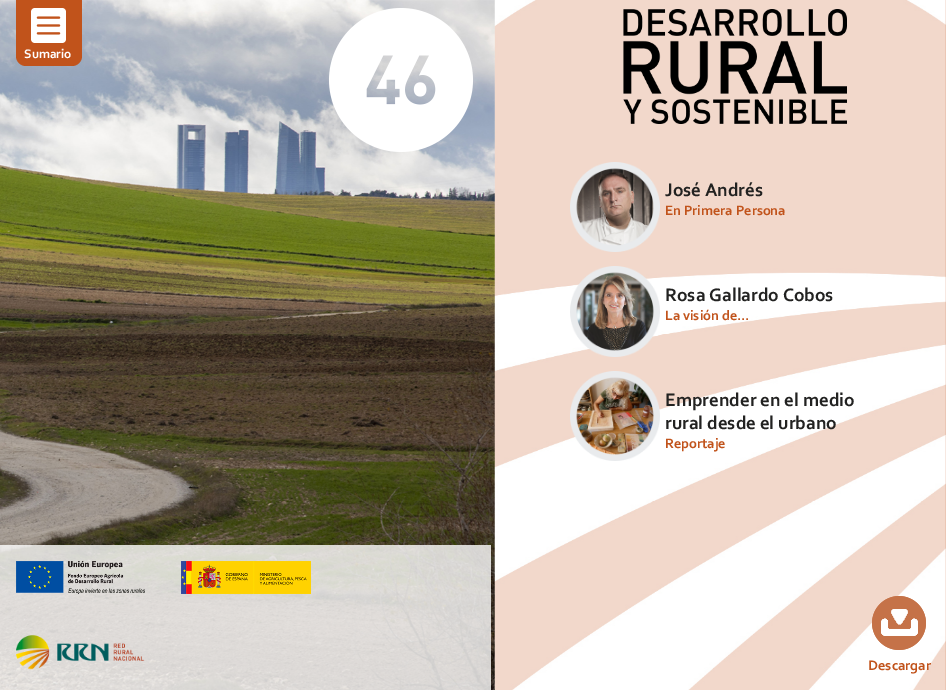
%!PS-Adobe-3.0
%%BoundingBox: 0 0 946 690
%%LanguageLevel: 3
%%Pages: 1
%%EndComments
%%BeginProlog
/setink { dup -16 bitshift 255 div exch dup -8 bitshift 255 and 255 div exch 255 and 255 div setrgbcolor } def
/usefont { [ exch dup neg 0 0 3 -1 roll 0 0 ] selectfont } def
/setalpha { dup .setfillconstantalpha .setstrokeconstantalpha } def
/drawimage { 5 dict begin { /h /w /y /x /name } { exch def } forall
  gsave x y translate w h scale
  w h 8 [w 0 0 h 0 0] name (r) file false 3 colorimage grestore end } def
%%EndProlog
%%BeginSetup
<< /PageSize [946 690] /PageUsesTransparency true >> setpagedevice
%%EndSetup
%%Page: 1 1
0 .pushpdf14devicefilter
0 690 translate 1 -1 scale
4 setmiterlimit
16#FFFFFF setink
0 0 946 690 rectfill
(img1.raw) 0 0 946 690 drawimage
16#C1531B setink
16 0 moveto 82 0 lineto 82 56 lineto 82 61.5 77.5 66 72 66 curveto 26 66 lineto 20.5 66 16 61.5 16 56 curveto closepath fill
(img2.raw) 31 8 35 35 drawimage
/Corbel-Bold 13 usefont
16#FFFFFF setink
24 58 moveto (Sumario) show
(img3.raw) 329 8 144 144 drawimage
(img4.raw) 623 9 224 115 drawimage
(img5.raw) 570 162 90 90 drawimage
/Corbel-Bold 19 usefont
16#222221 setink
665 196 moveto (José Andrés) show
/Corbel-Bold 14.25 usefont
16#C1531B setink
665 215 moveto (En Primera Persona) show
(img6.raw) 570 266 90 91 drawimage
/Corbel-Bold 19 usefont
16#222221 setink
665 301 moveto (Rosa Gallardo Cobos) show
/Corbel-Bold 14.25 usefont
16#C1531B setink
665 320 moveto (La visión de...) show
(img7.raw) 570 371 90 90 drawimage
/Corbel-Bold 19 usefont
16#222221 setink
665 406 moveto (Emprender en el medio) show
665 429 moveto (rural desde el urbano) show
/Corbel-Bold 14.25 usefont
16#C1531B setink
665 448 moveto (Reportaje) show
0.8 setalpha
16#FFFFFF setink
0 545 491 145 rectfill
1 setalpha
(img8.raw) 16 561 129 33 drawimage
(img9.raw) 181 561 130 33 drawimage
(img10.raw) 16 635 129 35 drawimage
(img11.raw) 872 596 54 54 drawimage
/Corbel-Bold 14.5 usefont
16#C1531B setink
868 670 moveto (Descargar) show
.poppdf14devicefilter showpage
%%EOF
